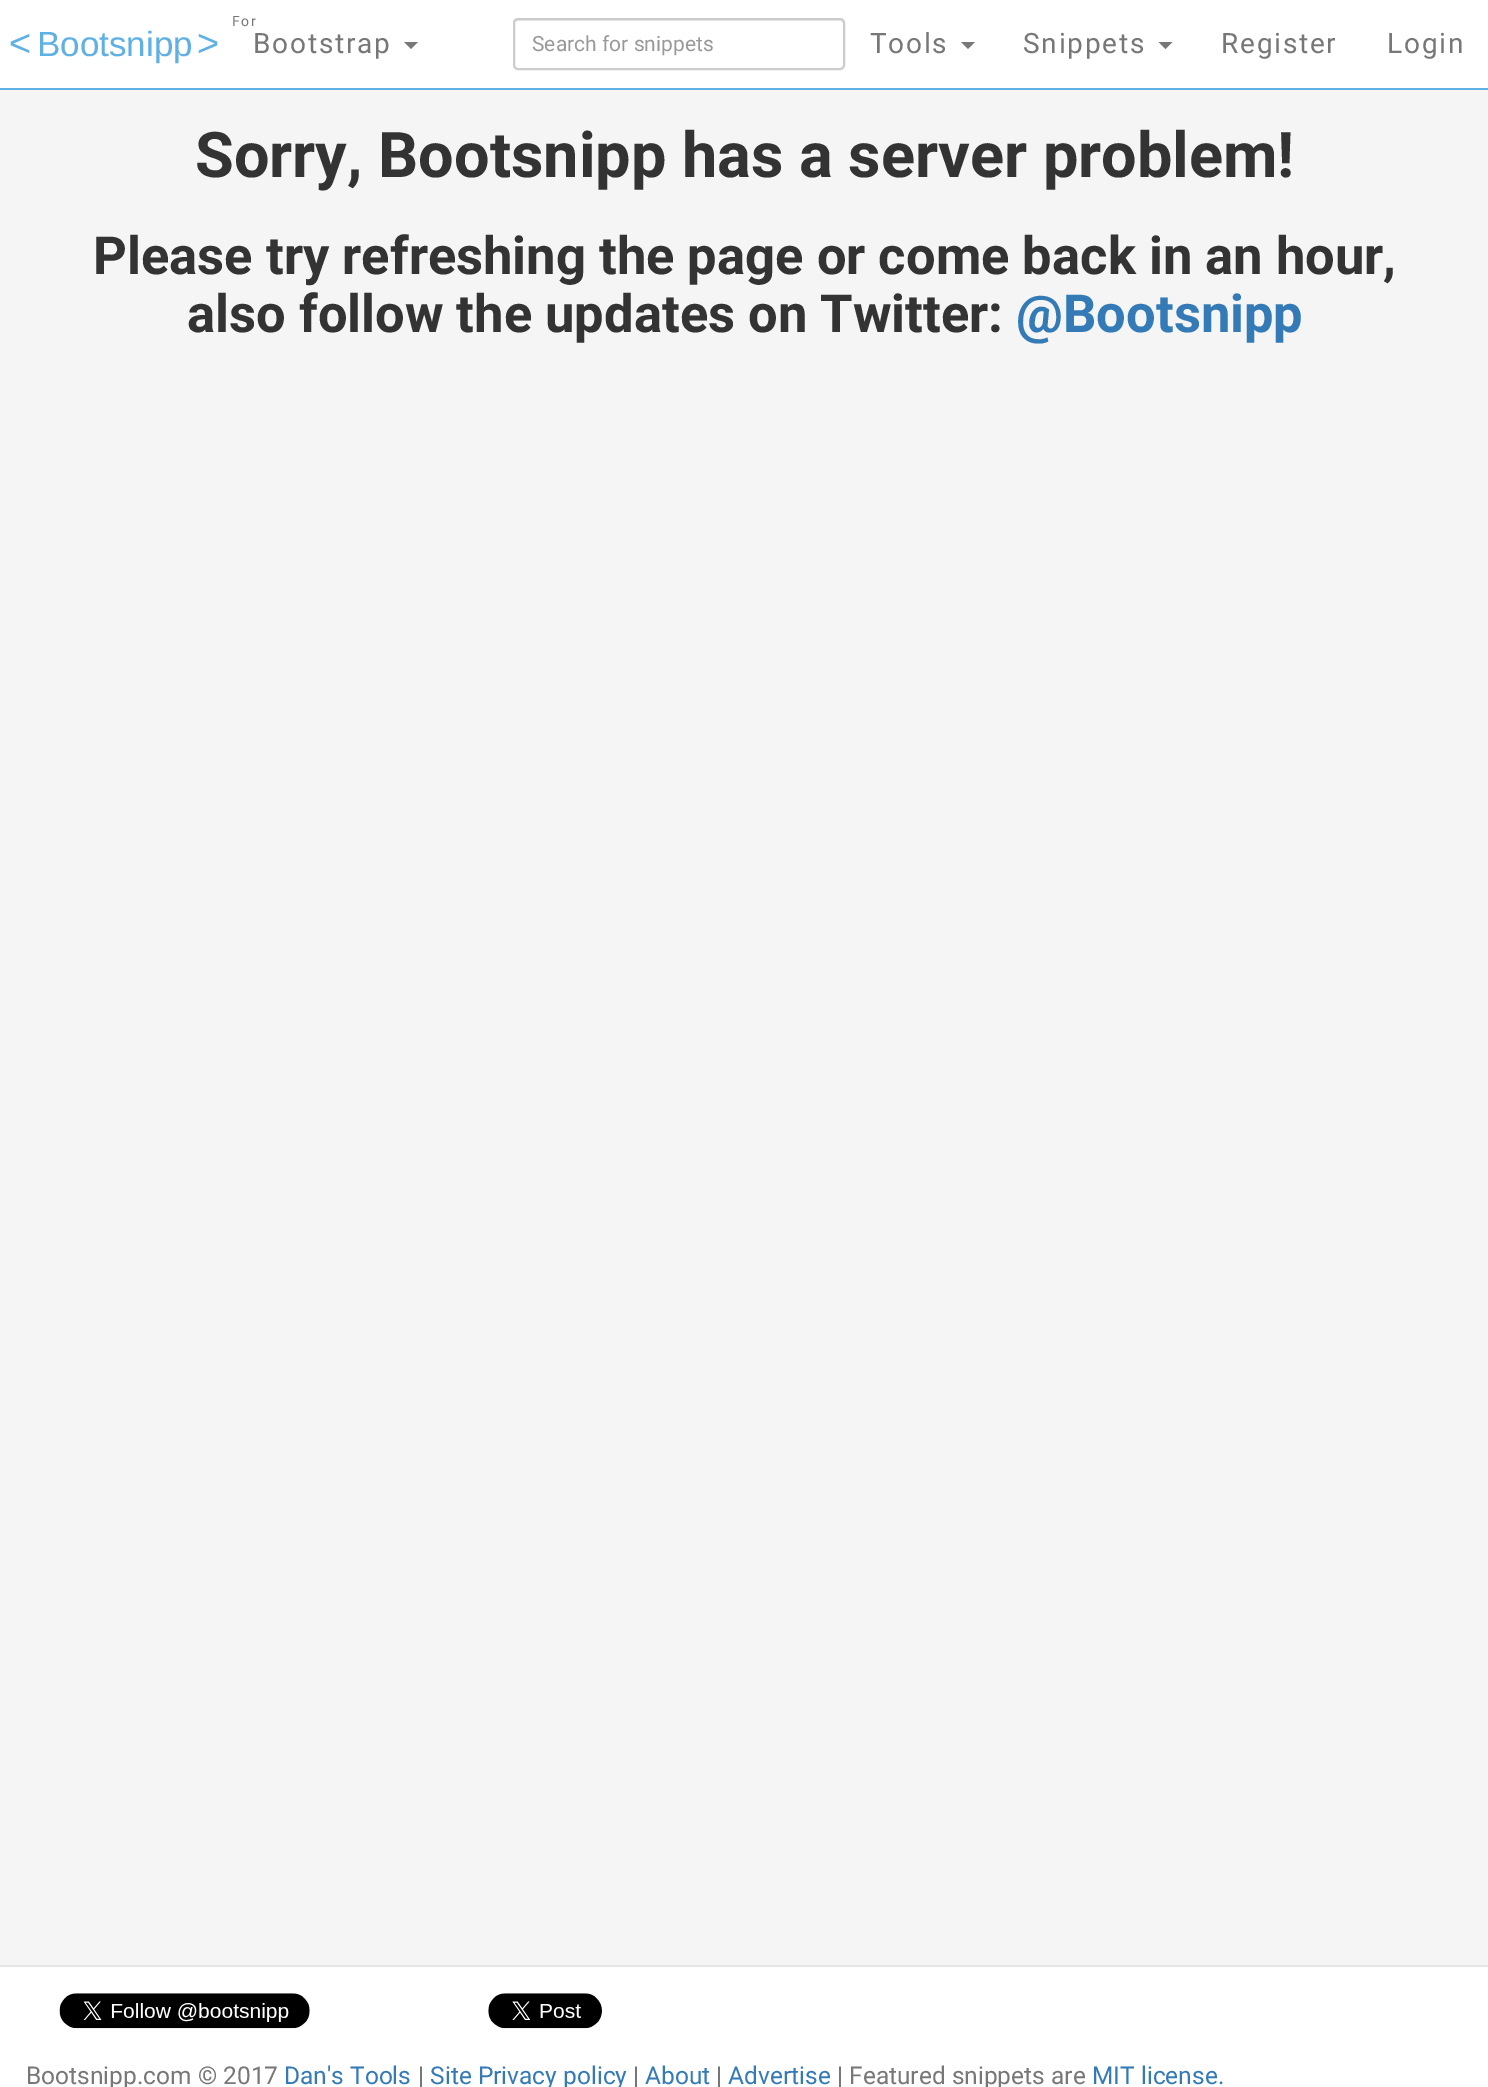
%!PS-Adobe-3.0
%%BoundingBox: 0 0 1488 2087
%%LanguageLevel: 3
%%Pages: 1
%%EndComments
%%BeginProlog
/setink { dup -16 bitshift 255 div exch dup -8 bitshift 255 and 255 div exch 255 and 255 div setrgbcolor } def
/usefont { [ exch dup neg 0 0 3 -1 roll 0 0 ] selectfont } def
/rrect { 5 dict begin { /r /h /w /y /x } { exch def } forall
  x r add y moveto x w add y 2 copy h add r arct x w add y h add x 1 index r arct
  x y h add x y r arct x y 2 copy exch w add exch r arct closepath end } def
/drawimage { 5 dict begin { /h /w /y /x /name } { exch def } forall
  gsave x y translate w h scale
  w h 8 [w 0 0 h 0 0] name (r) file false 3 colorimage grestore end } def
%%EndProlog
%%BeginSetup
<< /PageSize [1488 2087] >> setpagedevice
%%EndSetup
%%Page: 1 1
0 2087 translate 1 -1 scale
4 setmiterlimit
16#F5F5F5 setink
0 0 1488 2087 rectfill
16#FFFFFF setink
0 0 1488 88 rectfill
16#5FB0E4 setink
0 88 1488 2 rectfill
/LiberationSans-Regular 38 usefont
9 56 moveto (<) show
/LiberationSans-Regular 35 usefont
37 56 moveto (Bootsnipp) show
/LiberationSans-Regular 38 usefont
197 56 moveto (>) show
/Roboto-Regular 14 usefont
16#777777 setink
232 26 moveto 1.75 0 (For) ashow
/Roboto-Regular 28 usefont
253 53 moveto 1.75 0 (Bootstrap) ashow
16#787878 setink
404 42 moveto 418 42 lineto 411 49 lineto closepath fill
16#ECECEC setink
518 21 moveto 840 21 lineto 842 21 844 23 844 24 curveto 844 23 lineto 844 21 842 19 840 19 curveto 519 19 lineto 517 19 515 20 515 22 curveto closepath fill
16#CCCCCC setink
2 setlinewidth
514 19 330 50 4 rrect stroke
/Roboto-Regular 21 usefont
16#999999 setink
532 51 moveto (Search for snippets) show
/Roboto-Regular 28 usefont
16#777777 setink
870 53 moveto 1.75 0 (Tools) ashow
16#787878 setink
961 42 moveto 975 42 lineto 968 49 lineto closepath fill
16#777777 setink
1023 53 moveto 1.75 0 (Snippets) ashow
16#787878 setink
1158.5 42 moveto 1172.5 42 lineto 1165.5 49 lineto closepath fill
16#777777 setink
1221 53 moveto 1.75 0 (Register) ashow
1387 53 moveto 1.75 0 (Login) ashow
/Roboto-Bold 63 usefont
16#333333 setink
195 177 moveto (Sorry, Bootsnipp has a server problem!) show
/Roboto-Bold 52.5 usefont
93 274 moveto (Please try refreshing the page or come back in an hour,) show
187 332 moveto (also follow the updates on Twitter:) show
16#337AB7 setink
1016 332 moveto (@Bootsnipp) show
16#FFFFFF setink
0 1967 1488 120 rectfill
16#E5E5E5 setink
0 1965 1488 2 rectfill
(img1.raw) 59 1993 251 36 drawimage
(img2.raw) 488 1993 114 36 drawimage
/Roboto-Regular 24.5 usefont
16#777777 setink
26 2084 moveto (Bootsnipp.com © 2017) show
16#337AB7 setink
284 2084 moveto (Dan's Tools) show
16#777777 setink
418 2084 moveto (|) show
16#337AB7 setink
430 2084 moveto (Site Privacy policy) show
16#777777 setink
633 2084 moveto (|) show
16#337AB7 setink
645 2084 moveto (About) show
16#777777 setink
716 2084 moveto (|) show
16#337AB7 setink
728 2084 moveto (Advertise) show
16#777777 setink
837 2084 moveto (| Featured snippets are) show
16#337AB7 setink
1092 2084 moveto (MIT license.) show
showpage
%%EOF
